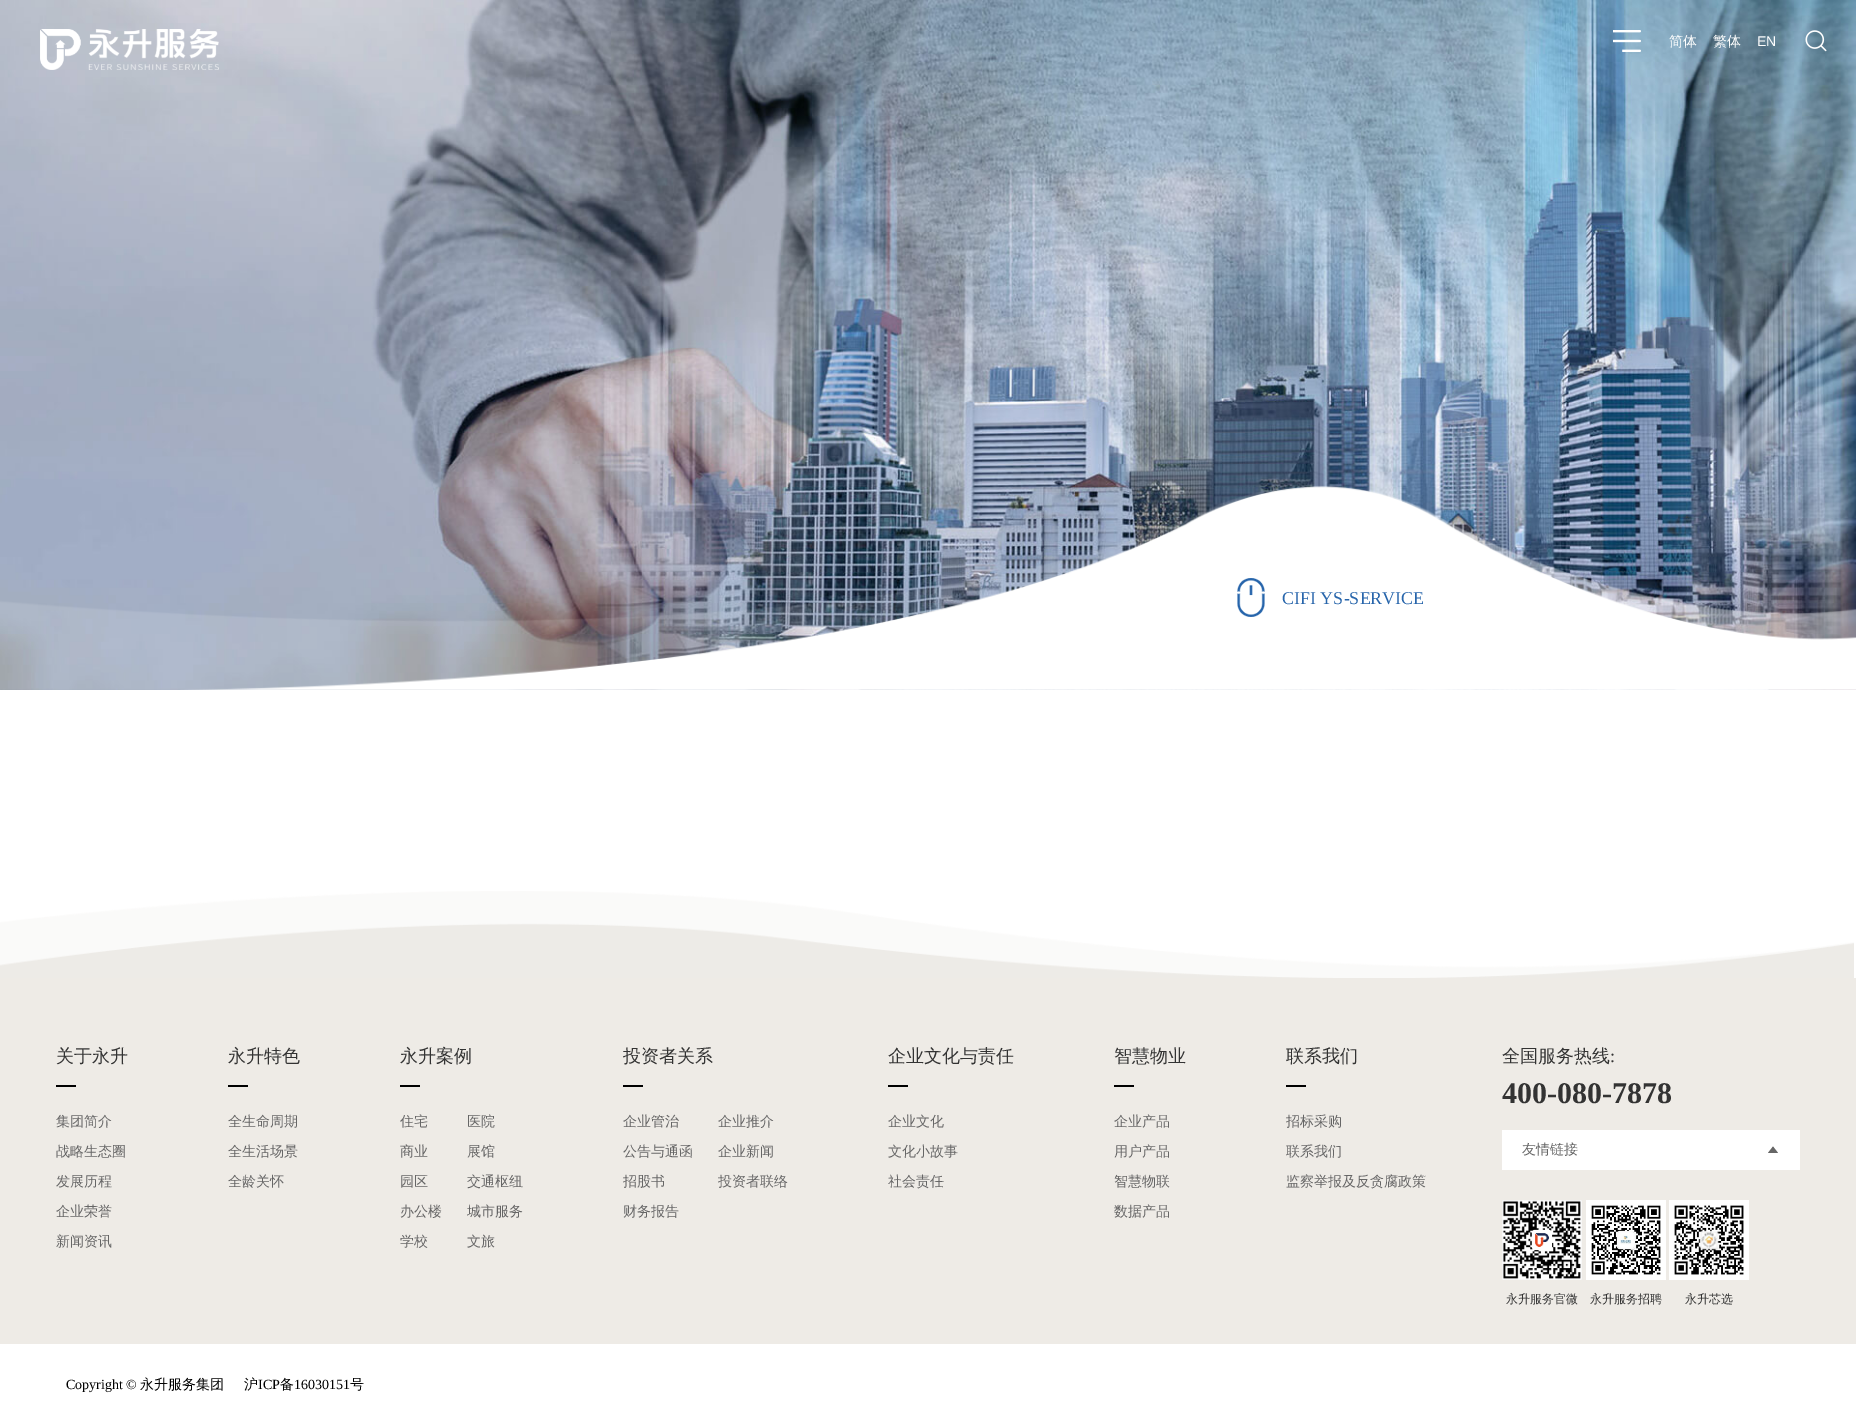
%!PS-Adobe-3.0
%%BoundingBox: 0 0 1856 1425
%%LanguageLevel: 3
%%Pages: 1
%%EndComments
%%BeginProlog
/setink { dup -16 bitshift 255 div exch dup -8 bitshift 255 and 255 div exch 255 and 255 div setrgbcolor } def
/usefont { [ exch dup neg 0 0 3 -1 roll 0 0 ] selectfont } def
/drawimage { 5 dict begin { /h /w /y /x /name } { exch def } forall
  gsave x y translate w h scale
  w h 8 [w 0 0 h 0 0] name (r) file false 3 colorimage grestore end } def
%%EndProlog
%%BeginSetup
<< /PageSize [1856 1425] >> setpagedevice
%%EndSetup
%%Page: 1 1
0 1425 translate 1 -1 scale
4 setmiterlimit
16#FFFFFF setink
0 0 1856 1425 rectfill
(img4.raw) 0 0 1856 690 drawimage
(img1.raw) 40 29 179 41 drawimage
(img2.raw) 1613 30 28 22 drawimage
/WenQuanYiZenHei-Medium 14 usefont
1669 46 moveto (简体) show
1713 46 moveto (繁体) show
/LiberationSans-Regular 14 usefont
1757 46 moveto (EN) show
(img3.raw) 1805 30 22 22 drawimage
(img5.raw) 0 485 1856 205 drawimage
(img6.raw) 1237 578 28 39 drawimage
/LiberationSerif-Regular 18 usefont
16#2765AB setink
1282 604 moveto (CIFI YS-SERVICE) show
(img7.raw) 0 891 1854 87 drawimage
16#EEEBE6 setink
0 978 1856 366 rectfill
/WenQuanYiZenHei-Medium 18 usefont
16#333333 setink
56 1062 moveto (关于永升) show
16#000000 setink
56 1085 20 2 rectfill
/WenQuanYiZenHei-Medium 14 usefont
16#666666 setink
[
    [(集团简介) 56 1126]
    [(战略生态圈) 56 1156]
    [(发展历程) 56 1186]
    [(企业荣誉) 56 1216]
    [(新闻资讯) 56 1246]
] { aload pop moveto show } forall
/WenQuanYiZenHei-Medium 18 usefont
16#333333 setink
228 1062 moveto (永升特色) show
16#000000 setink
228 1085 20 2 rectfill
/WenQuanYiZenHei-Medium 14 usefont
16#666666 setink
[
    [(全生命周期) 228 1126]
    [(全生活场景) 228 1156]
    [(全龄关怀) 228 1186]
] { aload pop moveto show } forall
/WenQuanYiZenHei-Medium 18 usefont
16#333333 setink
400 1062 moveto (永升案例) show
16#000000 setink
400 1085 20 2 rectfill
/WenQuanYiZenHei-Medium 14 usefont
16#666666 setink
[
    [(住宅) 400 1126]
    [(商业) 400 1156]
    [(园区) 400 1186]
    [(办公楼) 400 1216]
    [(学校) 400 1246]
    [(医院) 467 1126]
    [(展馆) 467 1156]
    [(交通枢纽) 467 1186]
    [(城市服务) 467 1216]
    [(文旅) 467 1246]
] { aload pop moveto show } forall
/WenQuanYiZenHei-Medium 18 usefont
16#333333 setink
623 1062 moveto (投资者关系) show
16#000000 setink
623 1085 20 2 rectfill
/WenQuanYiZenHei-Medium 14 usefont
16#666666 setink
[
    [(企业管治) 623 1126]
    [(公告与通函) 623 1156]
    [(招股书) 623 1186]
    [(财务报告) 623 1216]
    [(企业推介) 718 1126]
    [(企业新闻) 718 1156]
    [(投资者联络) 718 1186]
] { aload pop moveto show } forall
/WenQuanYiZenHei-Medium 18 usefont
16#333333 setink
888 1062 moveto (企业文化与责任) show
16#000000 setink
888 1085 20 2 rectfill
/WenQuanYiZenHei-Medium 14 usefont
16#666666 setink
[
    [(企业文化) 888 1126]
    [(文化小故事) 888 1156]
    [(社会责任) 888 1186]
] { aload pop moveto show } forall
/WenQuanYiZenHei-Medium 18 usefont
16#333333 setink
1114 1062 moveto (智慧物业) show
16#000000 setink
1114 1085 20 2 rectfill
/WenQuanYiZenHei-Medium 14 usefont
16#666666 setink
[
    [(企业产品) 1114 1126]
    [(用户产品) 1114 1156]
    [(智慧物联) 1114 1186]
    [(数据产品) 1114 1216]
] { aload pop moveto show } forall
/WenQuanYiZenHei-Medium 18 usefont
16#333333 setink
1286 1062 moveto (联系我们) show
16#000000 setink
1286 1085 20 2 rectfill
/WenQuanYiZenHei-Medium 14 usefont
16#666666 setink
[
    [(招标采购) 1286 1126]
    [(联系我们) 1286 1156]
    [(监察举报及反贪腐政策) 1286 1186]
] { aload pop moveto show } forall
/WenQuanYiZenHei-Medium 18 usefont
16#333333 setink
1502 1062 moveto (全国服务热线) show
/LiberationSerif-Regular 18 usefont
1610 1062 moveto (:) show
/LiberationSerif-Bold 30 usefont
1502 1103 moveto (400-080-7878) show
16#FFFFFF setink
1502 1130 298 40 rectfill
/WenQuanYiZenHei-Medium 14 usefont
16#666666 setink
1522 1154 moveto (友情链接) show
1773 1146.5 moveto 1768 1153 lineto 1778 1153 lineto closepath fill
(img8.raw) 1502 1200 80 80 drawimage
/WenQuanYiZenHei-Medium 12 usefont
16#333333 setink
1506 1303 moveto (永升服务官微) show
(img9.raw) 1586 1200 80 80 drawimage
1590 1303 moveto (永升服务招聘) show
(img10.raw) 1669 1200 80 80 drawimage
1685 1303 moveto (永升芯选) show
/LiberationSerif-Regular 14 usefont
16#000000 setink
66 1389 moveto (Copyright ©) show
/WenQuanYiZenHei-Medium 14 usefont
140 1389 moveto (永升服务集团) show
244 1389 moveto (沪) show
/LiberationSerif-Regular 14 usefont
258 1389 moveto (ICP) show
/WenQuanYiZenHei-Medium 14 usefont
280 1389 moveto (备) show
/LiberationSerif-Regular 14 usefont
294 1389 moveto (16030151) show
/WenQuanYiZenHei-Medium 14 usefont
350 1389 moveto (号) show
showpage
%%EOF
